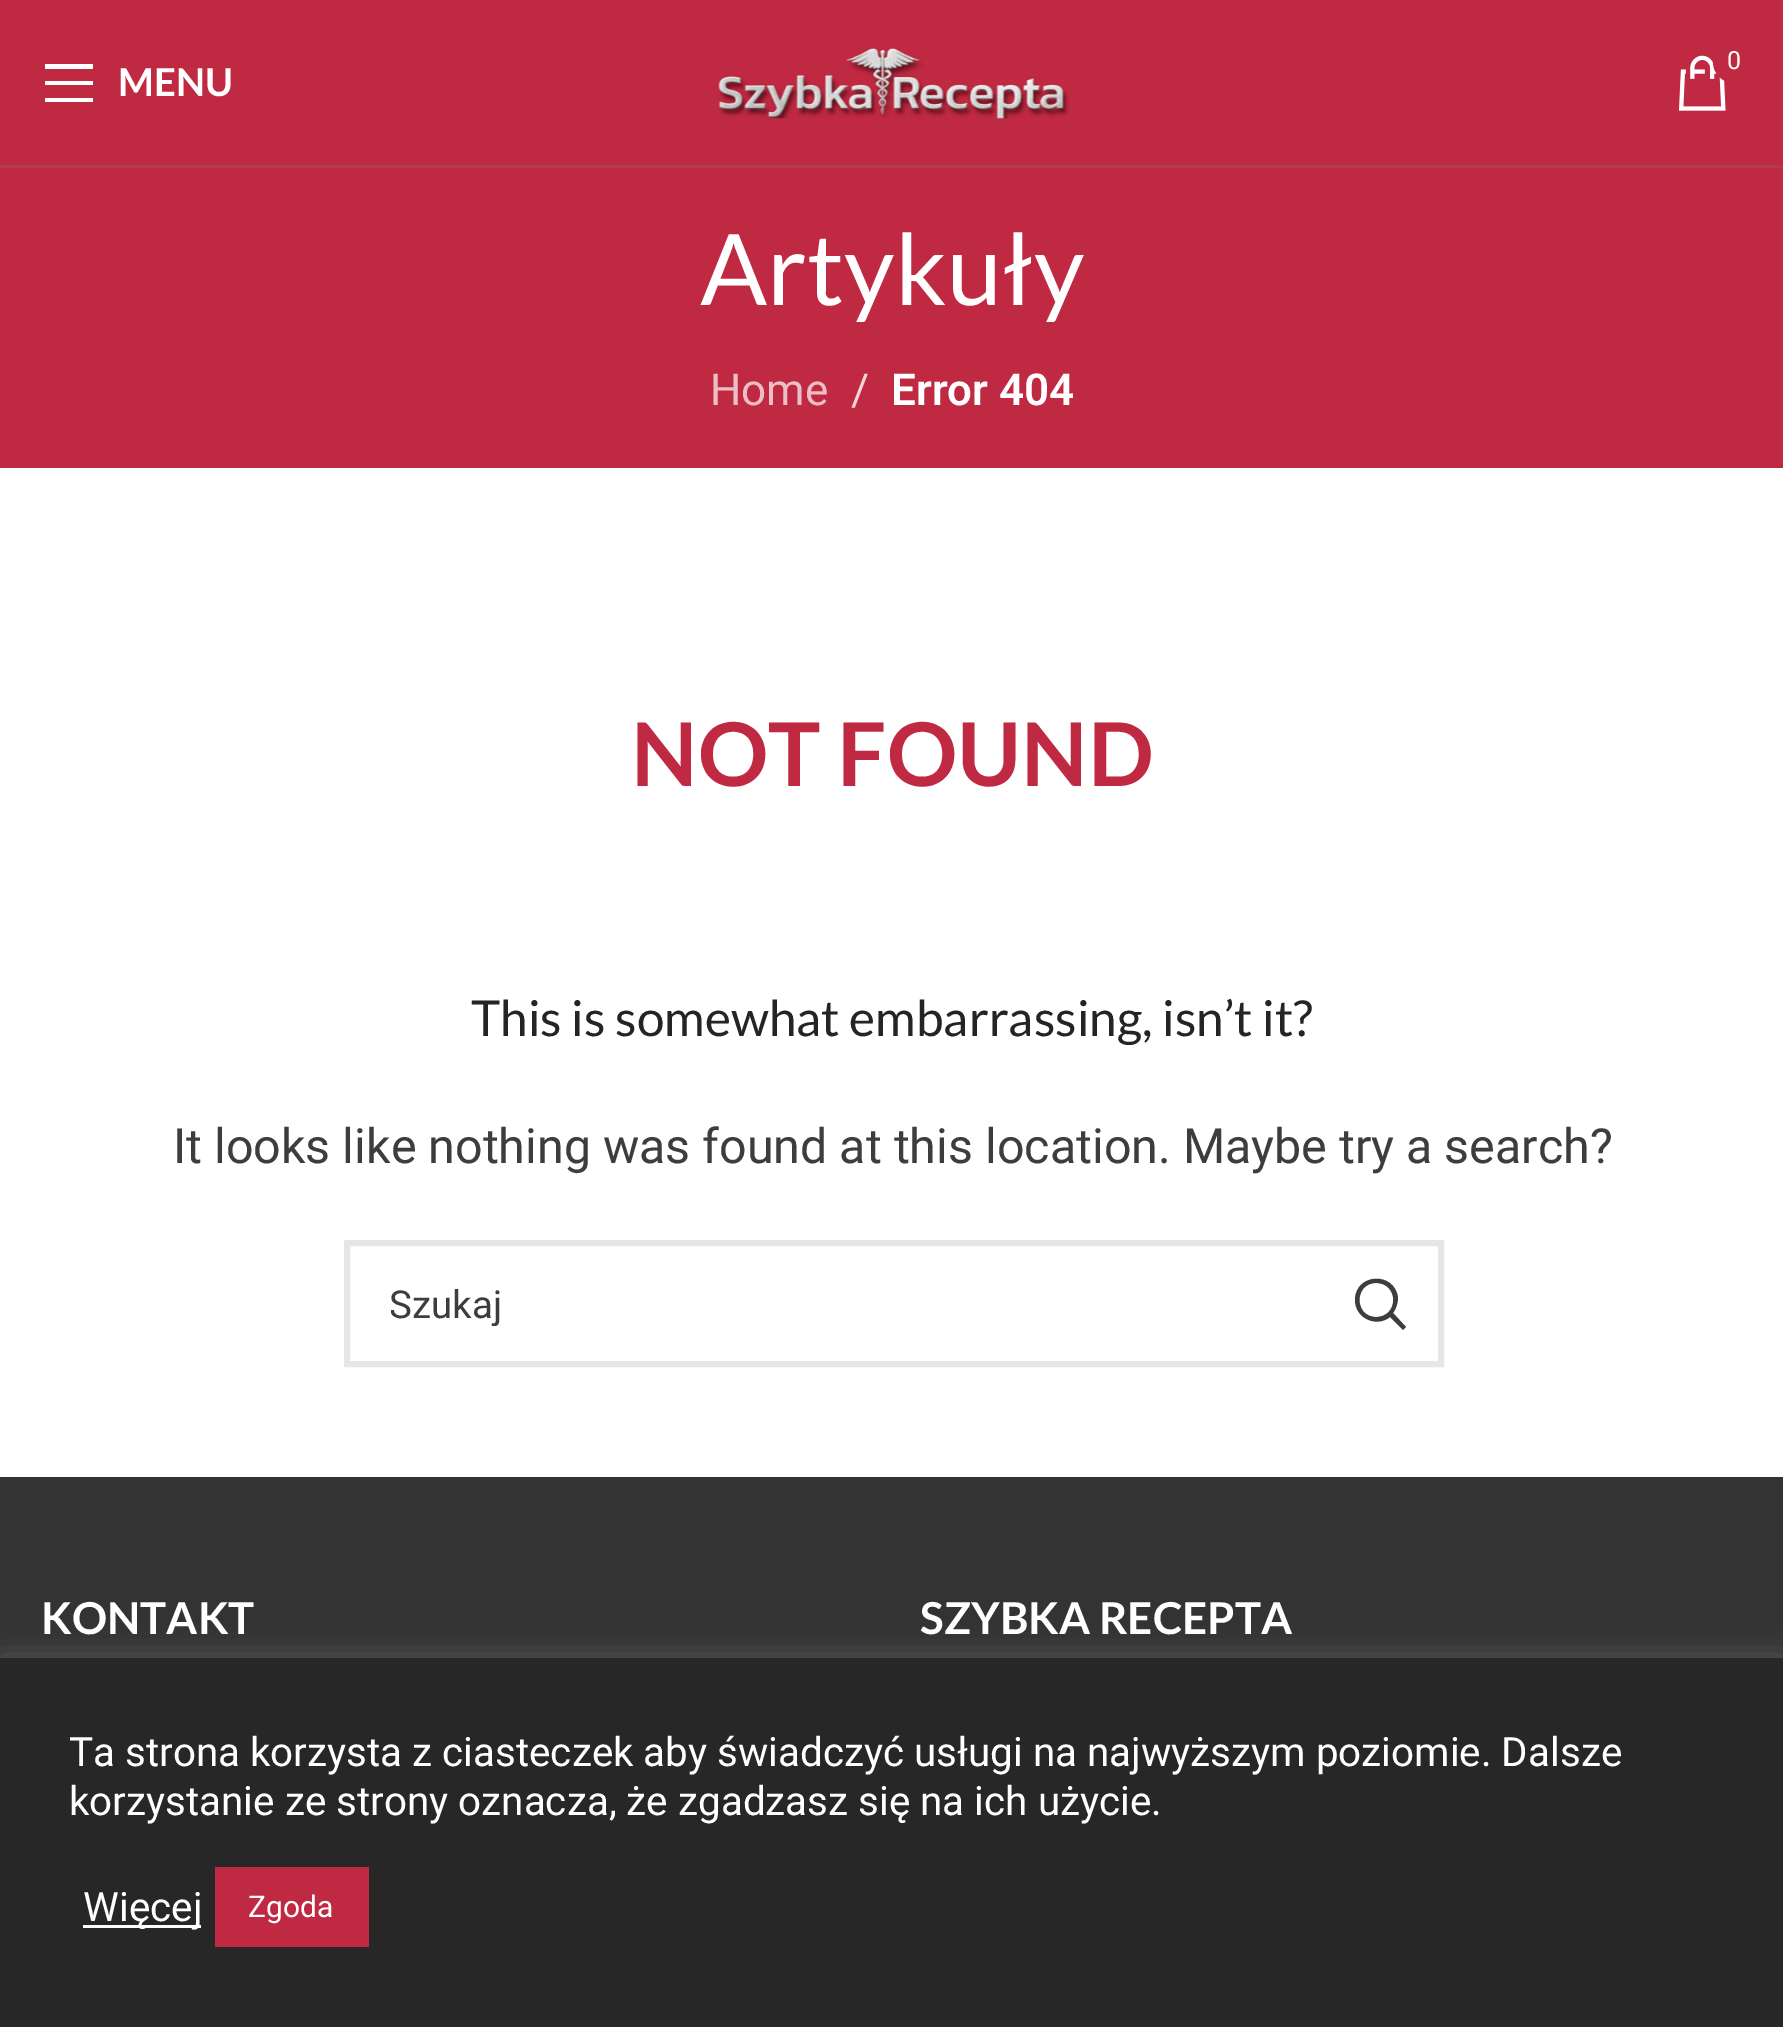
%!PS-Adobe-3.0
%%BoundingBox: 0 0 1783 2027
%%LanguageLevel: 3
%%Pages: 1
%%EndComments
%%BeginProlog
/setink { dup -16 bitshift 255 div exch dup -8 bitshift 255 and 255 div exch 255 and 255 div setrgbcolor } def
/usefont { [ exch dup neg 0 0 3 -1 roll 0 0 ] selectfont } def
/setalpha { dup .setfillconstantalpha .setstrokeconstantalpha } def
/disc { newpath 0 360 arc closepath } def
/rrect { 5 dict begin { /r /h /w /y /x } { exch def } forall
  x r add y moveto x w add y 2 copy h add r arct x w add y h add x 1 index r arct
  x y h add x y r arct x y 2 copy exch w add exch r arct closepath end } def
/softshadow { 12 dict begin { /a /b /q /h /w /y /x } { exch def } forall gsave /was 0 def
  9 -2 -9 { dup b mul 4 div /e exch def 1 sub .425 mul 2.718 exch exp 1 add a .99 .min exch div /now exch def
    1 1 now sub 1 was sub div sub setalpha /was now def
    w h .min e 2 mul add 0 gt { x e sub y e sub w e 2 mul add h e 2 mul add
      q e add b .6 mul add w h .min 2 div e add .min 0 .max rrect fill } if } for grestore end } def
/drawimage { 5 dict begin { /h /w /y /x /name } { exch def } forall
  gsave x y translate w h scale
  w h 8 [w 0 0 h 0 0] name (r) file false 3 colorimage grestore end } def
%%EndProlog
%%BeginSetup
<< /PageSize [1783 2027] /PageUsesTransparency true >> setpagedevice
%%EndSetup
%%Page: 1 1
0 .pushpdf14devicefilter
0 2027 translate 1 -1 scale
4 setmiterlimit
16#FFFFFF setink
0 0 1783 2027 rectfill
16#C02942 setink
0 0 1783 165 rectfill
16#B33B4F setink
0 165 1783 3 rectfill
(img1.raw) 718 47 351 72 drawimage
(img2.raw) 1678 55 48 56 drawimage
16#C02942 setink
1734 62 21 disc fill
/Roboto-Regular 25 usefont
16#FFFFFF setink
1727 69 moveto (0) show
45 69 moveto 93 69 lineto 93 64 lineto 45 64 lineto closepath 45 85 moveto 93 85 lineto 93 81 lineto 45 81 lineto closepath 45 102 moveto 93 102 lineto 93 98 lineto 45 98 lineto closepath fill
/Lato-Bold 38.5 usefont
118 96 moveto (MENU) show
16#C02942 setink
0 168 1783 300 rectfill
/Lato-Regular 99 usefont
16#FFFFFF setink
700 305 moveto (Artykuły) show
/Roboto-Regular 44 usefont
16#ECBFC6 setink
710 405 moveto (Home) show
16#F2D4D9 setink
851 405 moveto (/) show
/Roboto-SemiBold 44 usefont
16#FFFFFF setink
891 405 moveto (Error 404) show
/Lato-Bold 88 usefont
16#C02942 setink
631 786 moveto (NOT FOUND) show
/Lato-Regular 49.5 usefont
16#242424 setink
471 1036 moveto (This is somewhat embarrassing, isn’t it?) show
/Roboto-Regular 48.4 usefont
16#3D3D3D setink
173 1163 moveto (It looks like nothing was found at this location. Maybe try a search?) show
16#E6E6E6 setink
6 setlinewidth
347 1243 1094 121 rectstroke
gsave
391 1282 838 44 rectclip
/Roboto-Regular 38.5 usefont
16#3D3D3D setink
389 1318 moveto (Szukaj) show
grestore
16#3D3D3D setink
1355 1300 moveto 1355 1318 1376 1328 1390 1317 curveto 1403 1330 lineto 1406 1327 lineto 1393 1313 lineto 1396 1309 1398 1303 1398 1298 curveto 1395 1271 1355 1273 1355 1300 curveto closepath 1376 1317 moveto 1354 1317 1354 1283 1376 1283 curveto 1399 1283 1399 1317 1376 1317 curveto closepath fill
16#333333 setink
0 1477 1783 181 rectfill
/Lato-Bold 44 usefont
16#FFFFFF setink
41 1634 moveto (KONTAKT) show
920 1634 moveto (SZYBKA RECEPTA) show
16#ACABAB setink
0 1656 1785 371 0 14 0.3 softshadow
16#272727 setink
0 1658 1783 369 rectfill
/Roboto-Regular 40.35 usefont
16#FFFFFF setink
69 1766 moveto (Ta strona korzysta z ciasteczek aby świadczyć usługi na najwyższym poziomie. Dalsze) show
69 1815 moveto (korzystanie ze strony oznacza, że zgadzasz się na ich użycie.) show
83 1925 118 3 rectfill
83 1921 moveto (Więcej) show
16#C02942 setink
215 1867 154 80 rectfill
/Roboto-Regular 30 usefont
16#FFFFFF setink
248 1917 moveto (Zgoda) show
.poppdf14devicefilter showpage
%%EOF
